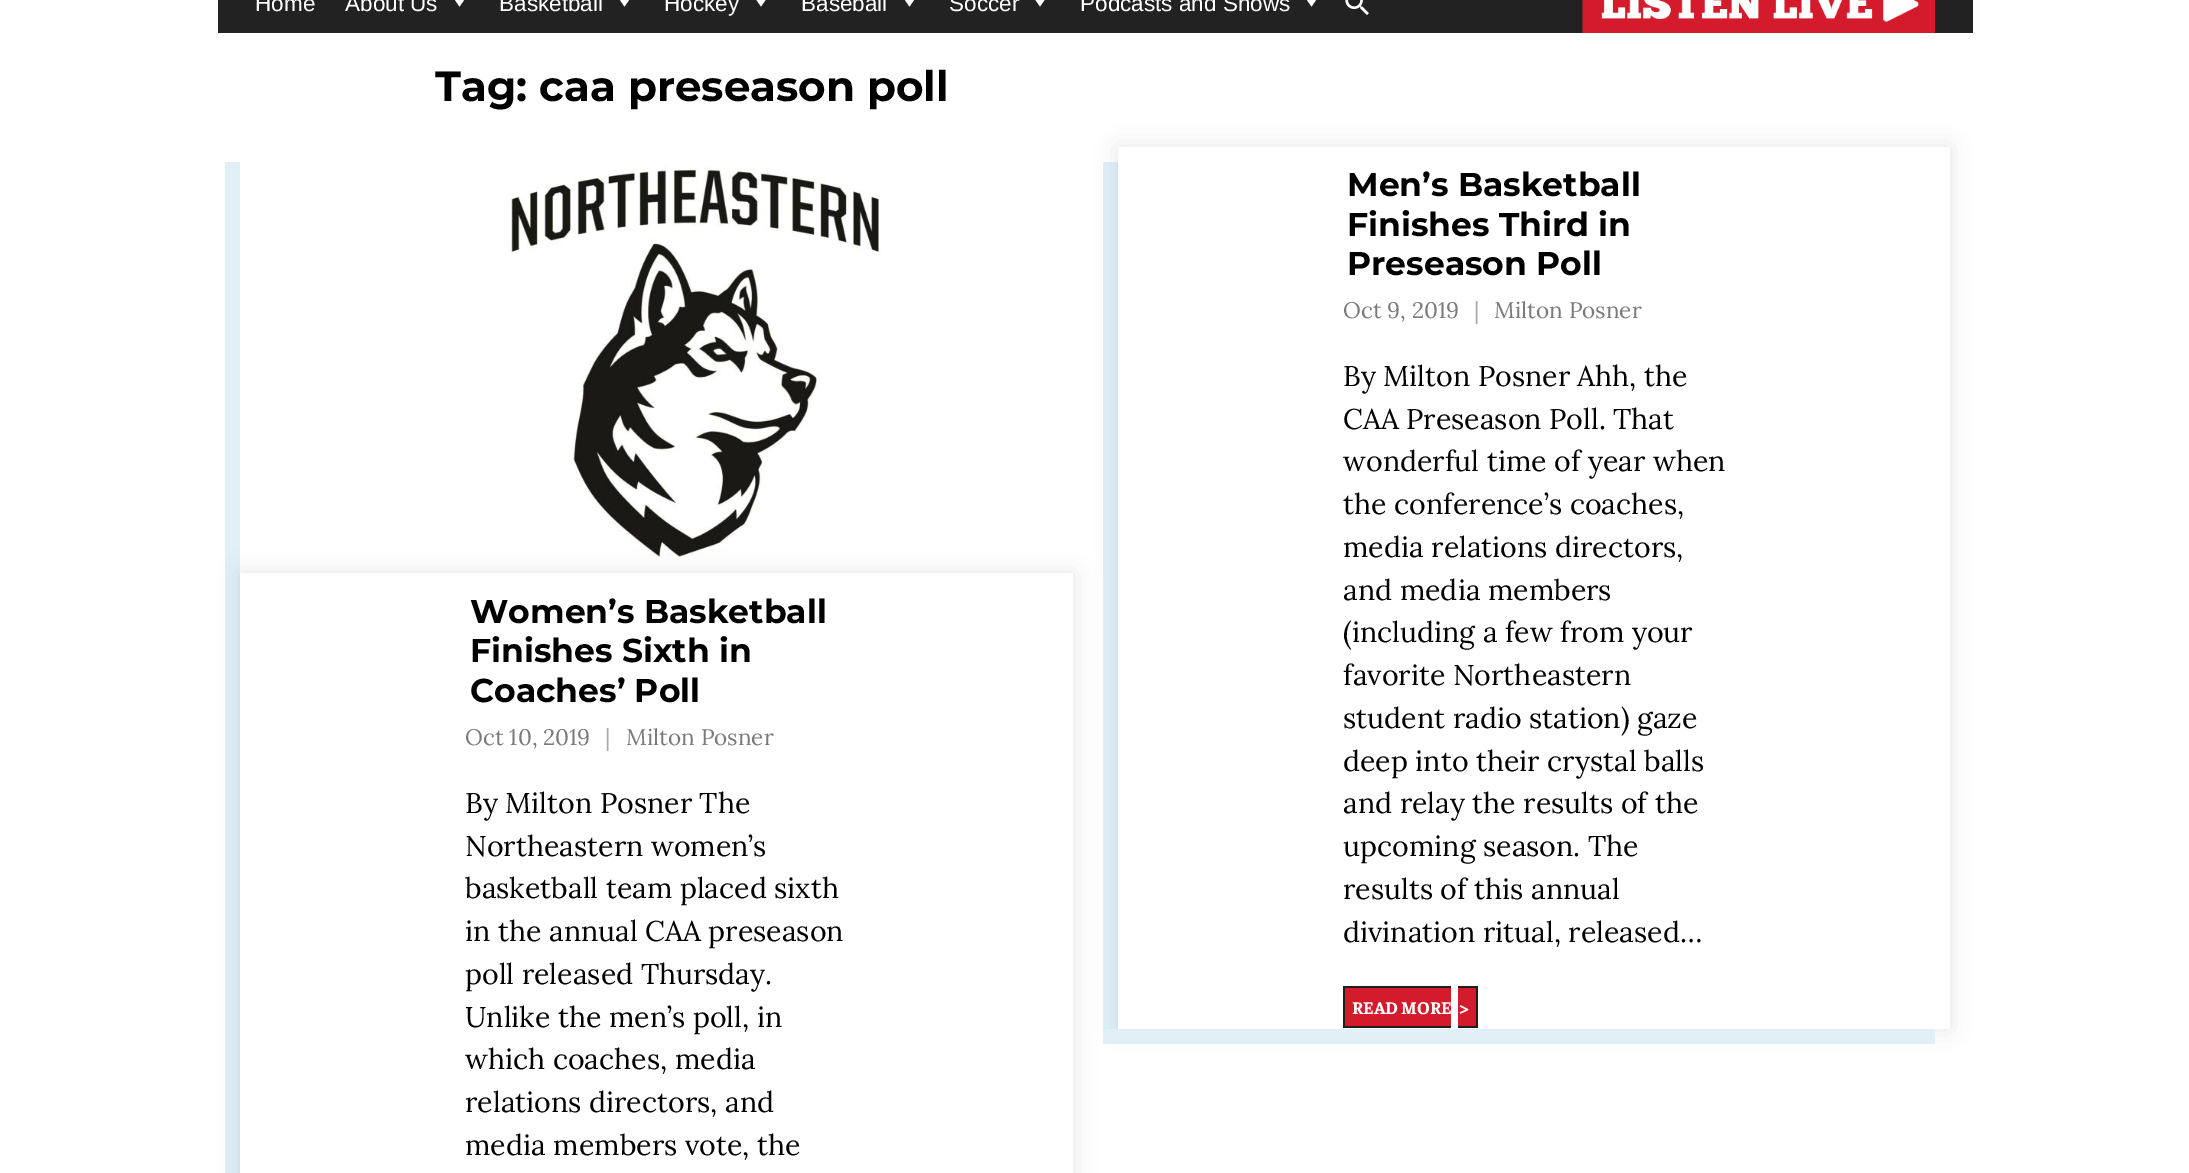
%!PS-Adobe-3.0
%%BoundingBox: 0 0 2189 1173
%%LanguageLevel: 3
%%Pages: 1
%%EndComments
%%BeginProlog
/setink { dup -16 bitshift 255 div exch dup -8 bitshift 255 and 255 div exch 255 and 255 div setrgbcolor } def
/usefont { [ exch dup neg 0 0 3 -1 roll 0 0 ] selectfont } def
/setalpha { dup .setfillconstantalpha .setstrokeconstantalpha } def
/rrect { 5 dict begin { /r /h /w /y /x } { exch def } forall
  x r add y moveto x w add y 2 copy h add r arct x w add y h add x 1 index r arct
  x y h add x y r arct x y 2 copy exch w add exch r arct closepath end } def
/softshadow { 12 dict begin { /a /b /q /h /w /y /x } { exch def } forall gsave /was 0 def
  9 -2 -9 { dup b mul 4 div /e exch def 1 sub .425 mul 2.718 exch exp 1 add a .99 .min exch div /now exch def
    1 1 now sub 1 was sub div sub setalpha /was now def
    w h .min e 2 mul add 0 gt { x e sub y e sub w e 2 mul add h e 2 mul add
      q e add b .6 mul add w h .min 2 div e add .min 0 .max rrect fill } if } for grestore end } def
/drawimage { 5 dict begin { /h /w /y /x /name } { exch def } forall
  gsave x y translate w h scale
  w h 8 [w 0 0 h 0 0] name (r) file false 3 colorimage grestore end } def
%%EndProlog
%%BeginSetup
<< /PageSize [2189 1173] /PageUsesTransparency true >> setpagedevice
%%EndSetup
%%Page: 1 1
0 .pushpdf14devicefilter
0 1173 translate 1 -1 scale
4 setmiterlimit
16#FFFFFF setink
0 0 2189 1173 rectfill
16#222222 setink
218 0 1755 33 rectfill
/LiberationSans-Regular 22.5 usefont
16#FFFFFF setink
255 11 moveto (Home) show
345 11 moveto (About Us) show
464 0 moveto 459.5 6.5 lineto 455 0 lineto closepath fill
499 11 moveto (Basketball) show
629 0 moveto 624.5 6.5 lineto 620 0 lineto closepath fill
664 11 moveto (Hockey) show
765.5 0 moveto 761 6.5 lineto 756.5 0 lineto closepath fill
801 11 moveto (Baseball) show
914 0 moveto 909.5 6.5 lineto 905 0 lineto closepath fill
949 11 moveto (Soccer) show
1044.5 0 moveto 1040 6.5 lineto 1035.5 0 lineto closepath fill
1080 11 moveto (Podcasts and Shows) show
1316 0 moveto 1311.5 6.5 lineto 1307 0 lineto closepath fill
(img1.raw) 1345 0 24 15 drawimage
(img2.raw) 1582 0 353 33 drawimage
/Montserrat-Bold 42 usefont
16#000000 setink
435 101 moveto (Tag: caa preseason poll) show
16#E0F0F6 setink
225 162 15 1011 rectfill
(img3.raw) 508 165 373 393 drawimage
16#484979 setink
240 573 833 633 0 11 0.15 softshadow
16#FFFFFF setink
240 573 833 600 rectfill
/Montserrat-Bold 33 usefont
16#000000 setink
[
    [(Women’s Basketball) 470 623]
    [(Finishes Sixth in) 470 662]
    [(Coaches’ Poll) 470 702]
] { aload pop moveto show } forall
/Lora-Regular 22.5 usefont
16#7A7A7A setink
465 745 moveto (Oct 10, 2019) show
16#AAAAAA setink
605 745 moveto (|) show
16#7A7A7A setink
626 745 moveto (Milton Posner) show
/Lora-Regular 28.5 usefont
16#000000 setink
[
    [(By Milton Posner The) 465 813]
    [(Northeastern women’s) 465 856]
    [(basketball team placed sixth) 465 898]
    [(in the annual CAA preseason) 465 941]
    [(poll released Thursday.) 465 984]
    [(Unlike the men’s poll, in) 465 1027]
    [(which coaches, media) 465 1069]
    [(relations directors, and) 465 1112]
    [(media members vote, the) 465 1155]
] { aload pop moveto show } forall
16#E0F0F6 setink
1103 162 15 867 rectfill
gsave
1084 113 moveto 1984 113 lineto 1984 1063 lineto 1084 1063 lineto closepath 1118 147 moveto 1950 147 lineto 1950 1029 lineto 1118 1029 lineto closepath eoclip newpath
16#484979 setink
1118 147 832 882 0 11 0.15 softshadow
grestore
/Montserrat-Bold 33 usefont
16#000000 setink
[
    [(Men’s Basketball) 1347 196]
    [(Finishes Third in) 1347 236]
    [(Preseason Poll) 1347 275]
] { aload pop moveto show } forall
/Lora-Regular 22.5 usefont
16#7A7A7A setink
1343 318 moveto (Oct 9, 2019) show
16#AAAAAA setink
1474 318 moveto (|) show
16#7A7A7A setink
1494 318 moveto (Milton Posner) show
/Lora-Regular 28.5 usefont
16#000000 setink
[
    [(By Milton Posner Ahh, the) 1343 386]
    [(CAA Preseason Poll. That) 1343 429]
    [(wonderful time of year when) 1343 471]
    [(the conference’s coaches,) 1343 514]
    [(media relations directors,) 1343 557]
    [(and media members) 1343 600]
    [(\(including a few from your) 1343 642]
    [(favorite Northeastern) 1343 685]
    [(student radio station\) gaze) 1343 728]
    [(deep into their crystal balls) 1343 771]
    [(and relay the results of the) 1343 813]
    [(upcoming season. The) 1343 856]
    [(results of this annual) 1343 899]
    [(divination ritual, released…) 1343 942]
] { aload pop moveto show } forall
16#D41B2C setink
1345 988 106 38 rectfill
/Faustina-Bold 18 usefont
16#FFFFFF setink
1352 1014 moveto (READ MORE) show
[
    [1343 986 108 2 16#1E1E1E]
    [1343 1026 108 2 16#1E1E1E]
    [1343 986 2 42 16#1E1E1E]
    [1458 988 18 38 16#D41B2C]
] { aload pop setink rectfill } forall
16#FFFFFF setink
1459 1014 moveto (>) show
[
    [1458 986 20 2 16#1E1E1E]
    [1476 986 2 42 16#1E1E1E]
    [1458 1026 20 2 16#1E1E1E]
    [1103 1029 832 15 16#E0F0F6]
] { aload pop setink rectfill } forall
.poppdf14devicefilter showpage
%%EOF
